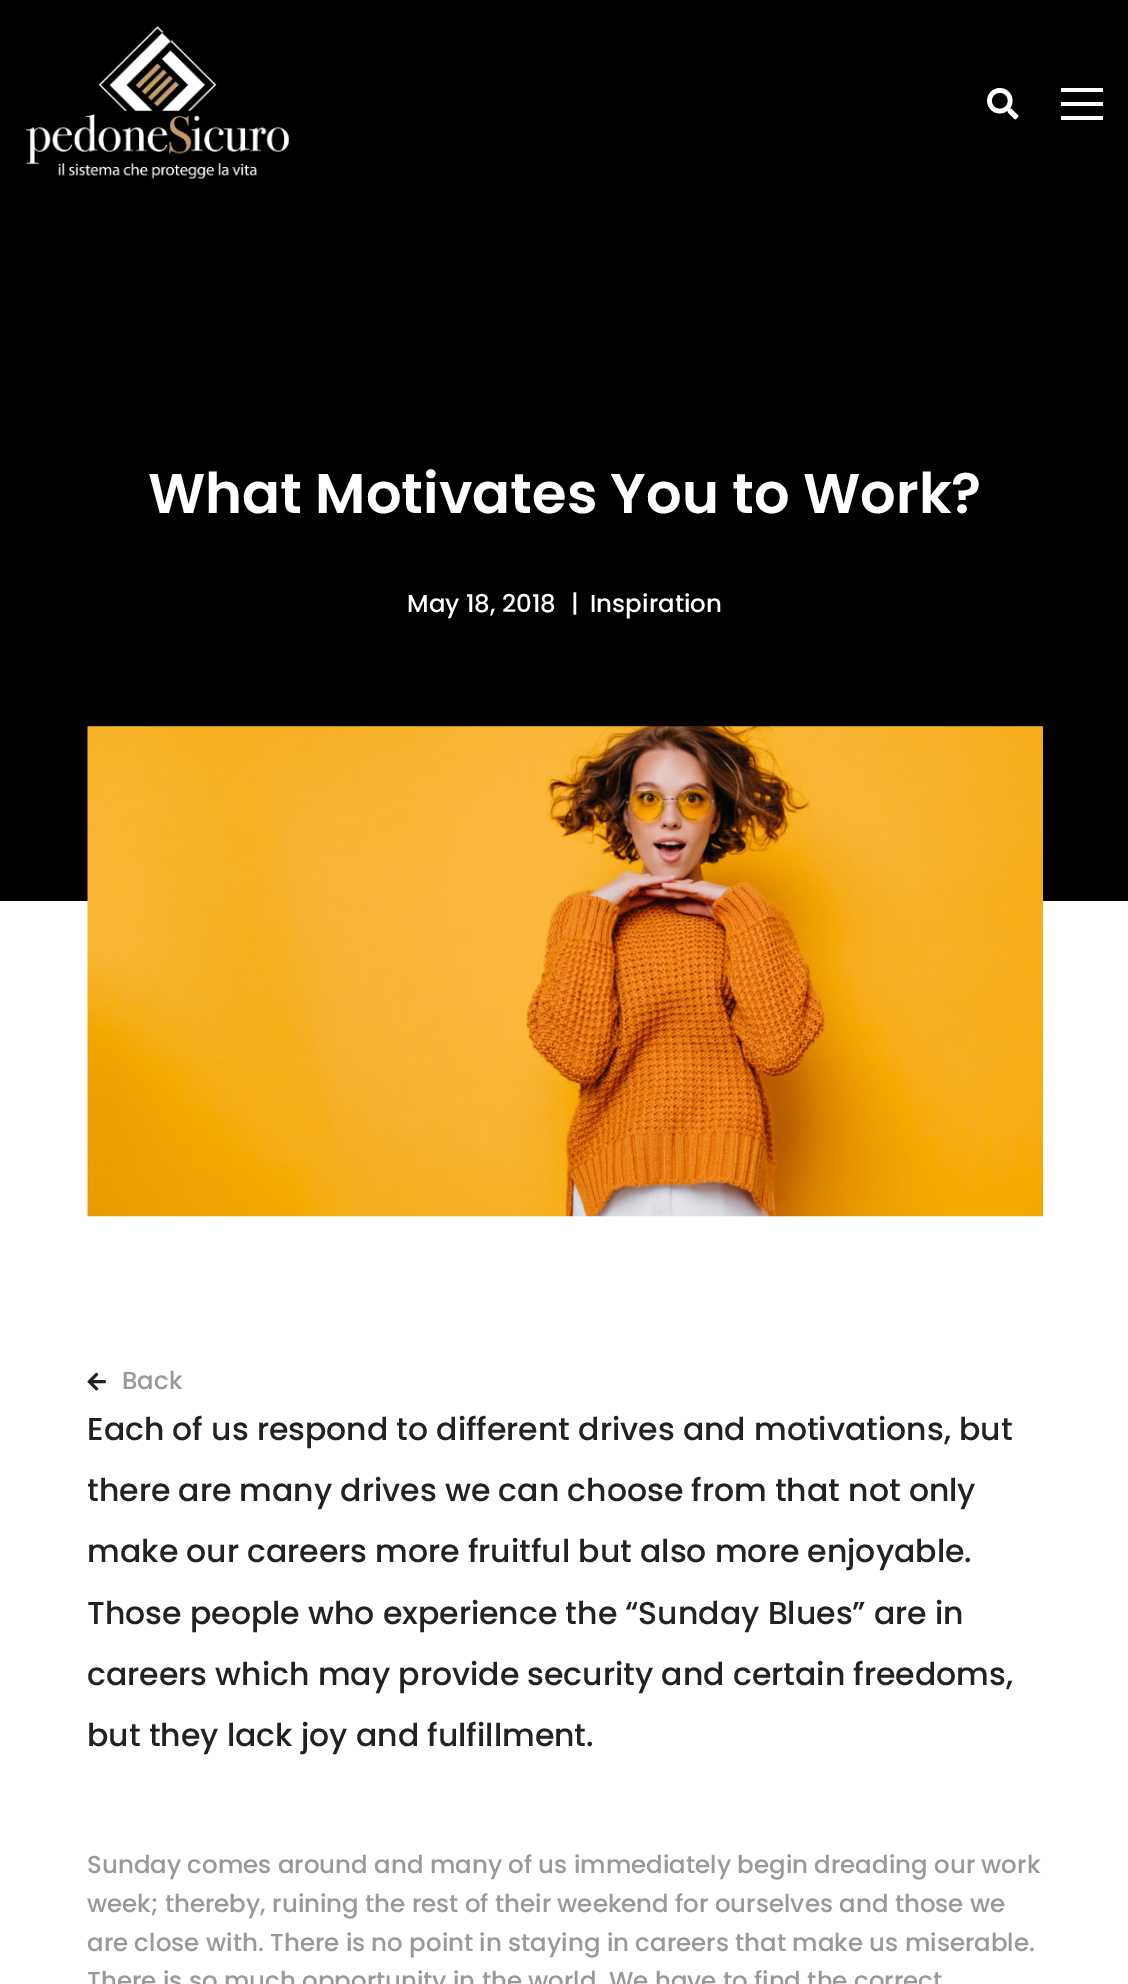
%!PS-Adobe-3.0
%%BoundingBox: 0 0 1128 1984
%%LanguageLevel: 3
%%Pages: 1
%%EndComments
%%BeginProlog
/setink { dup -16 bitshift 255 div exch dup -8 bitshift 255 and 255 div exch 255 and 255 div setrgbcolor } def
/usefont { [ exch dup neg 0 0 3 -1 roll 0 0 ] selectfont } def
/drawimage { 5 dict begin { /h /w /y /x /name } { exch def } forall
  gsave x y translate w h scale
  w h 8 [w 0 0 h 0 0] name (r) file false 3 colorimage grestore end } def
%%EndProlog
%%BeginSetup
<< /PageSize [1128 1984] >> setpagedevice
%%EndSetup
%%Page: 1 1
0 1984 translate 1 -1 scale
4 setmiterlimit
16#FFFFFF setink
0 0 1128 1984 rectfill
16#000000 setink
0 0 1128 901 rectfill
(img1.raw) 26 26 263 153 drawimage
(img2.raw) 987 87 32 33 drawimage
[
    [1061 102 42 4 16#FFFFFF]
    [1061 88 42 4 16#FFFFFF]
    [1061 116 42 4 16#FFFFFF]
] { aload pop setink rectfill } forall
/Poppins-SemiBold 56 usefont
148 513 moveto (What Motivates You to Work?) show
/Poppins-Medium 24.5 usefont
[
    [(May 18, 2018) 407 612]
    [(|) 571 612]
    [(Inspiration) 590 612]
] { aload pop moveto show } forall
(img3.raw) 87 726 956 491 drawimage
(img4.raw) 87 1372 19 19 drawimage
16#999999 setink
122 1389 moveto (Back) show
/Poppins-Medium 31.5 usefont
16#222222 setink
[
    [(Each of us respond to different drives and motivations, but) 87 1440]
    [(there are many drives we can choose from that not only) 87 1501]
    [(make our careers more fruitful but also more enjoyable.) 87 1562]
    [(Those people who experience the “Sunday Blues” are in) 87 1624]
    [(careers which may provide security and certain freedoms,) 87 1685]
    [(but they lack joy and fulfillment.) 87 1746]
] { aload pop moveto show } forall
/Poppins-Medium 24.5 usefont
16#999999 setink
[
    [(Sunday comes around and many of us immediately begin dreading our work) 87 1873]
    [(week; thereby, ruining the rest of their weekend for ourselves and those we) 87 1912]
    [(are close with. There is no point in staying in careers that make us miserable.) 87 1951]
    [(There is so much opportunity in the world. We have to find the correct) 87 1989]
] { aload pop moveto show } forall
showpage
%%EOF
